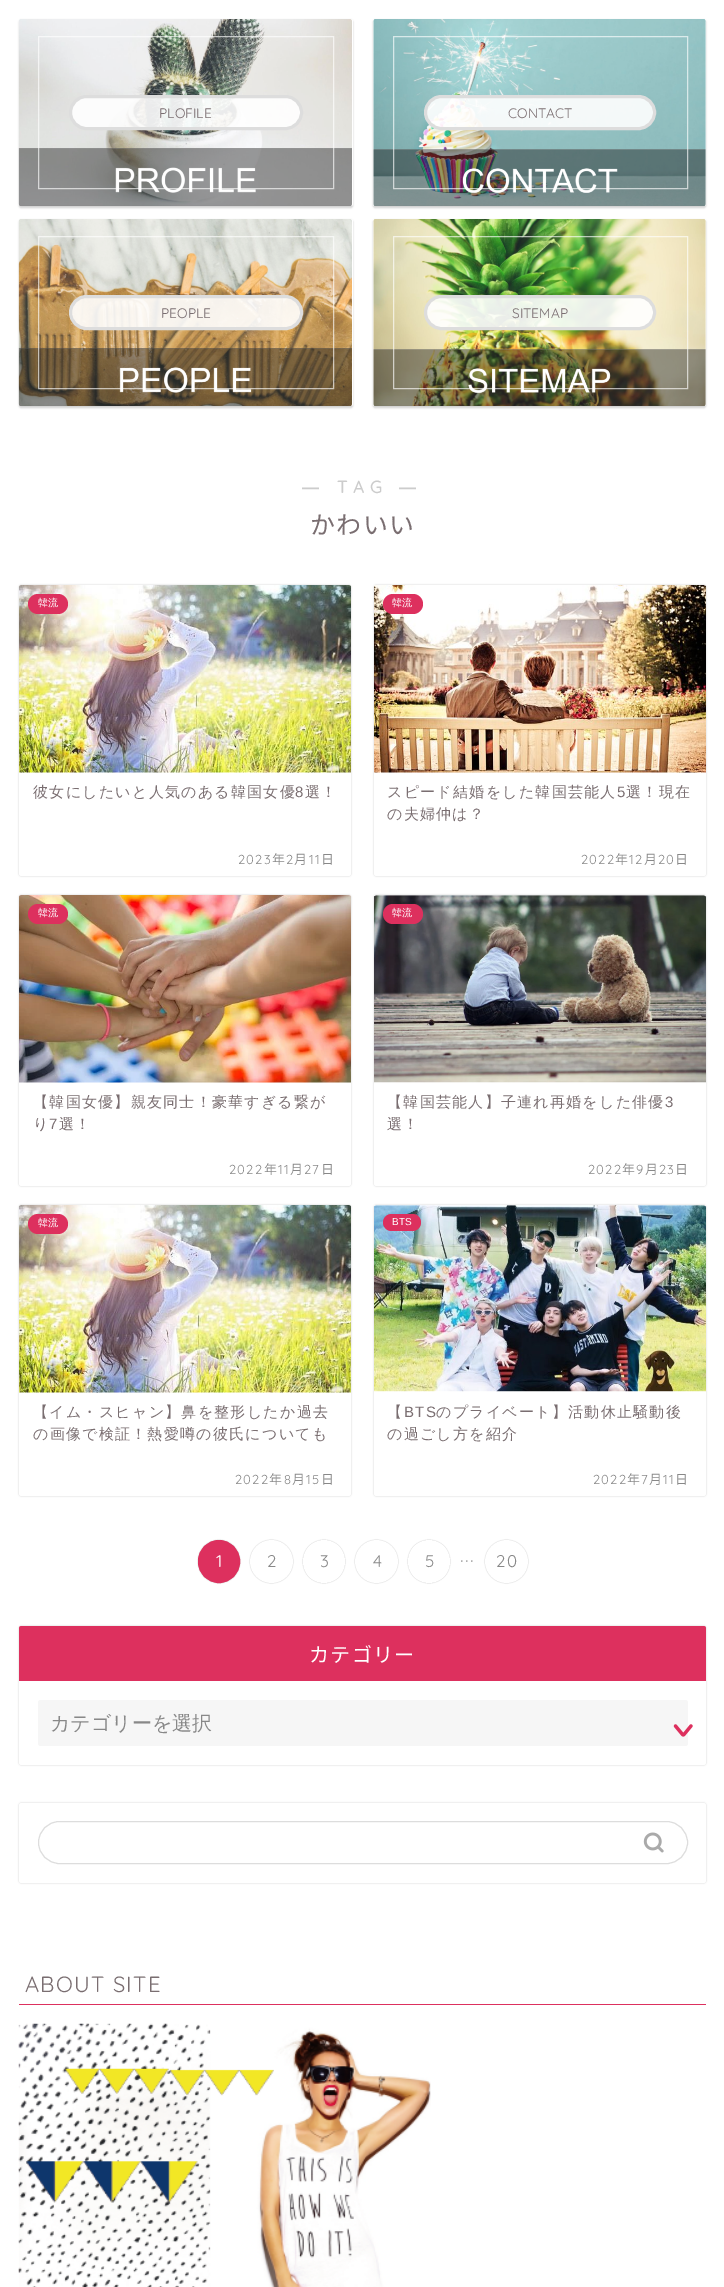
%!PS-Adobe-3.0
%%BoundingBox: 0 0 724 2287
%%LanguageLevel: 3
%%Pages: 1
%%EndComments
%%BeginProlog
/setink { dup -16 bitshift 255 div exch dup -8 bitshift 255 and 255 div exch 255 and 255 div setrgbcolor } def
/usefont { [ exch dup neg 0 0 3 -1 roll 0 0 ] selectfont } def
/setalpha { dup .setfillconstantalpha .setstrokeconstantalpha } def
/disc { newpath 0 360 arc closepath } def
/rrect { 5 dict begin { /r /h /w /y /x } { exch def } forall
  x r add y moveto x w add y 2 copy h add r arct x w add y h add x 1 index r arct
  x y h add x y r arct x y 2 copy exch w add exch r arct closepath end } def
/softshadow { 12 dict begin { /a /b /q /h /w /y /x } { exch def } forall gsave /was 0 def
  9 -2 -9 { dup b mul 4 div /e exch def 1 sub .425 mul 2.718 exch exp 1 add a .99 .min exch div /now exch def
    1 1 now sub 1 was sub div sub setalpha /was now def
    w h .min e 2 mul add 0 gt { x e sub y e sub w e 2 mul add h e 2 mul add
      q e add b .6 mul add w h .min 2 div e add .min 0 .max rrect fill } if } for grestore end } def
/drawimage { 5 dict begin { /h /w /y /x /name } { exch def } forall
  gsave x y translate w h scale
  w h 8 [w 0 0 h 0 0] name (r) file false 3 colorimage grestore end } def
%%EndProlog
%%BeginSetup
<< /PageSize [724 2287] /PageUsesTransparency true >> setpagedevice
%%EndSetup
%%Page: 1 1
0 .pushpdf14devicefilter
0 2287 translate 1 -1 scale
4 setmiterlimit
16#FFFFFF setink
0 0 724 2287 rectfill
16#000000 setink
19 20 334 188 2.5 1 0.18 softshadow
16#FFFFFF setink
19 19 334 187 2.5 rrect fill
0.9 setalpha
19 19 334 187 2.5 rrect fill
1 setalpha
(img1.raw) 18 19 334 187 drawimage
0.65 setalpha
38.5 36.5 295 152 rectstroke
0.9 setalpha
70.5 96.5 231 32 16 rrect fill
1 setalpha
16#DDDDDD setink
3 setlinewidth
70.5 96.5 231 32 16 rrect stroke
/Quicksand-Light 13.75 usefont
16#7A6E71 setink
159 118 moveto (PLOFILE) show
16#000000 setink
373 20 333 188 2.5 1 0.18 softshadow
16#FFFFFF setink
373 19 333 187 2.5 rrect fill
374 19 332 187 2.5 rrect fill
(img2.raw) 373 19 333 187 drawimage
0.65 setalpha
1 setlinewidth
393.5 36.5 294 152 rectstroke
0.9 setalpha
425.5 96.5 229 32 16 rrect fill
1 setalpha
16#DDDDDD setink
3 setlinewidth
425.5 96.5 229 32 16 rrect stroke
16#7A6E71 setink
508 118 moveto (CONTACT) show
16#000000 setink
19 220 334 188 2.5 1 0.18 softshadow
16#FFFFFF setink
19 219 334 187 2.5 rrect fill
0.9 setalpha
19 219 334 187 2.5 rrect fill
1 setalpha
(img3.raw) 18 219 334 187 drawimage
0.65 setalpha
1 setlinewidth
38.5 236.5 295 152 rectstroke
0.9 setalpha
70.5 296.5 231 32 16 rrect fill
1 setalpha
16#DDDDDD setink
3 setlinewidth
70.5 296.5 231 32 16 rrect stroke
16#7A6E71 setink
161 318 moveto (PEOPLE) show
16#000000 setink
373 220 333 188 2.5 1 0.18 softshadow
16#FFFFFF setink
373 219 333 187 2.5 rrect fill
374 219 332 187 2.5 rrect fill
(img4.raw) 373 219 333 187 drawimage
0.65 setalpha
1 setlinewidth
393.5 236.5 294 152 rectstroke
0.9 setalpha
425.5 296.5 229 32 16 rrect fill
1 setalpha
16#DDDDDD setink
3 setlinewidth
425.5 296.5 229 32 16 rrect stroke
16#7A6E71 setink
512 318 moveto (SITEMAP) show
/LiberationSans-Bold 17 usefont
16#CCCCCC setink
302 493 moveto 6 0 (―) ashow
/Quicksand-Bold 17 usefont
337 493 moveto 6 0 (TAG) ashow
/LiberationSans-Bold 17 usefont
399 493 moveto 6 0 (―) ashow
/NotoSansJP-Regular 25 usefont
16#7A6E71 setink
310 534 moveto 1.25 0 (かわいい) ashow
16#000000 setink
19 585 332 291 2.5 1 0.18 softshadow
16#FFFFFF setink
19 585 332 291 2.5 rrect fill
(img5.raw) 19 585 332 188 drawimage
16#DD305E setink
28 594 40 20 10 rrect fill
/WenQuanYiZenHei-Medium 10 usefont
16#FFFFFF setink
38 606 moveto (韓流) show
/WenQuanYiZenHei-Medium 15 usefont
16#7A6E71 setink
33 797 moveto 1.25 0 (彼女にしたいと人気のある韓国女優) ashow
/LiberationSans-Regular 15 usefont
295 797 moveto 1.25 0 (8) ashow
/WenQuanYiZenHei-Medium 15 usefont
305 797 moveto 1.25 0 (選！) ashow
/Quicksand-Light 13 usefont
16#888888 setink
238 864 moveto 1.25 0 (2023) ashow
/NotoSansJP-Light 13 usefont
272 864 moveto 1.25 0 (年) ashow
/Quicksand-Light 13 usefont
286 864 moveto 1.25 0 (2) ashow
/NotoSansJP-Light 13 usefont
294 864 moveto 1.25 0 (月) ashow
/Quicksand-Light 13 usefont
309 864 moveto 1.25 0 (11) ashow
/NotoSansJP-Light 13 usefont
321 864 moveto 1.25 0 (日) ashow
16#000000 setink
374 585 332 291 2.5 1 0.18 softshadow
16#FFFFFF setink
374 585 332 291 2.5 rrect fill
(img6.raw) 374 585 332 188 drawimage
16#DD305E setink
383 594 40 20 10 rrect fill
/WenQuanYiZenHei-Medium 10 usefont
16#FFFFFF setink
392 606 moveto (韓流) show
/WenQuanYiZenHei-Medium 15 usefont
16#7A6E71 setink
387 797 moveto 1.25 0 (スピード結婚をした韓国芸能人) ashow
/LiberationSans-Regular 15 usefont
617 797 moveto 1.25 0 (5) ashow
/WenQuanYiZenHei-Medium 15 usefont
626 797 moveto 1.25 0 (選！現在) ashow
387 819 moveto 1.25 0 (の夫婦仲は？) ashow
/Quicksand-Light 13 usefont
16#888888 setink
581 864 moveto 1.25 0 (2022) ashow
/NotoSansJP-Light 13 usefont
615 864 moveto 1.25 0 (年) ashow
/Quicksand-Light 13 usefont
629 864 moveto 1.25 0 (12) ashow
/NotoSansJP-Light 13 usefont
644 864 moveto 1.25 0 (月) ashow
/Quicksand-Light 13 usefont
658 864 moveto 1.25 0 (20) ashow
/NotoSansJP-Light 13 usefont
675 864 moveto 1.25 0 (日) ashow
16#000000 setink
19 895 332 291 2.5 1 0.18 softshadow
16#FFFFFF setink
19 895 332 291 2.5 rrect fill
(img7.raw) 19 895 332 188 drawimage
16#DD305E setink
28 904 40 20 10 rrect fill
/WenQuanYiZenHei-Medium 10 usefont
16#FFFFFF setink
38 916 moveto (韓流) show
/WenQuanYiZenHei-Medium 15 usefont
16#7A6E71 setink
33 1107 moveto 1.25 0 (【韓国女優】親友同士！豪華すぎる繋が) ashow
33 1129 moveto 1.25 0 (り) ashow
/LiberationSans-Regular 15 usefont
49 1129 moveto 1.25 0 (7) ashow
/WenQuanYiZenHei-Medium 15 usefont
59 1129 moveto 1.25 0 (選！) ashow
/Quicksand-Light 13 usefont
16#888888 setink
229 1174 moveto 1.25 0 (2022) ashow
/NotoSansJP-Light 13 usefont
264 1174 moveto 1.25 0 (年) ashow
/Quicksand-Light 13 usefont
278 1174 moveto 1.25 0 (11) ashow
/NotoSansJP-Light 13 usefont
290 1174 moveto 1.25 0 (月) ashow
/Quicksand-Light 13 usefont
304 1174 moveto 1.25 0 (27) ashow
/NotoSansJP-Light 13 usefont
321 1174 moveto 1.25 0 (日) ashow
16#000000 setink
374 895 332 291 2.5 1 0.18 softshadow
16#FFFFFF setink
374 895 332 291 2.5 rrect fill
(img8.raw) 374 895 332 188 drawimage
16#DD305E setink
383 904 40 20 10 rrect fill
/WenQuanYiZenHei-Medium 10 usefont
16#FFFFFF setink
392 916 moveto (韓流) show
/WenQuanYiZenHei-Medium 15 usefont
16#7A6E71 setink
387 1107 moveto 1.25 0 (【韓国芸能人】子連れ再婚をした俳優) ashow
/LiberationSans-Regular 15 usefont
665 1107 moveto 1.25 0 (3) ashow
/WenQuanYiZenHei-Medium 15 usefont
387 1129 moveto 1.25 0 (選！) ashow
/Quicksand-Light 13 usefont
16#888888 setink
588 1174 moveto 1.25 0 (2022) ashow
/NotoSansJP-Light 13 usefont
622 1174 moveto 1.25 0 (年) ashow
/Quicksand-Light 13 usefont
636 1174 moveto 1.25 0 (9) ashow
/NotoSansJP-Light 13 usefont
645 1174 moveto 1.25 0 (月) ashow
/Quicksand-Light 13 usefont
659 1174 moveto 1.25 0 (23) ashow
/NotoSansJP-Light 13 usefont
675 1174 moveto 1.25 0 (日) ashow
16#000000 setink
19 1205 332 291 2.5 1 0.18 softshadow
16#FFFFFF setink
19 1205 332 291 2.5 rrect fill
(img9.raw) 19 1205 332 188 drawimage
16#DD305E setink
28 1214 40 20 10 rrect fill
/WenQuanYiZenHei-Medium 10 usefont
16#FFFFFF setink
38 1226 moveto (韓流) show
/WenQuanYiZenHei-Medium 15 usefont
16#7A6E71 setink
33 1417 moveto 1.25 0 (【イム・スヒャン】鼻を整形したか過去) ashow
33 1439 moveto 1.25 0 (の画像で検証！熱愛噂の彼氏についても) ashow
/Quicksand-Light 13 usefont
16#888888 setink
235 1484 moveto 1.25 0 (2022) ashow
/NotoSansJP-Light 13 usefont
269 1484 moveto 1.25 0 (年) ashow
/Quicksand-Light 13 usefont
284 1484 moveto 1.25 0 (8) ashow
/NotoSansJP-Light 13 usefont
292 1484 moveto 1.25 0 (月) ashow
/Quicksand-Light 13 usefont
306 1484 moveto 1.25 0 (15) ashow
/NotoSansJP-Light 13 usefont
321 1484 moveto 1.25 0 (日) ashow
16#000000 setink
374 1205 332 291 2.5 1 0.18 softshadow
16#FFFFFF setink
374 1205 332 291 2.5 rrect fill
(img10.raw) 374 1205 332 187 drawimage
16#DD305E setink
383 1214 38 17 8.5 rrect fill
/LiberationSans-Regular 10 usefont
16#FFFFFF setink
392 1225 moveto (BTS) show
/WenQuanYiZenHei-Medium 15 usefont
16#7A6E71 setink
387 1417 moveto 1.25 0 (【) ashow
/LiberationSans-Regular 15 usefont
404 1417 moveto 1.25 0 (BTS) ashow
/WenQuanYiZenHei-Medium 15 usefont
436 1417 moveto 1.25 0 (のプライベート】活動休止騒動後) ashow
387 1439 moveto 1.25 0 (の過ごし方を紹介) ashow
/Quicksand-Light 13 usefont
16#888888 setink
593 1484 moveto 1.25 0 (2022) ashow
/NotoSansJP-Light 13 usefont
627 1484 moveto 1.25 0 (年) ashow
/Quicksand-Light 13 usefont
641 1484 moveto 1.25 0 (7) ashow
/NotoSansJP-Light 13 usefont
649 1484 moveto 1.25 0 (月) ashow
/Quicksand-Light 13 usefont
663 1484 moveto 1.25 0 (11) ashow
/NotoSansJP-Light 13 usefont
675 1484 moveto 1.25 0 (日) ashow
16#000000 setink
198 1540 42 43 21 0.5 0.25 softshadow
16#DD305E setink
198.5 1540.5 41 42 20.5 rrect gsave fill grestore
1 setlinewidth
stroke
/Quicksand-Light 17 usefont
16#FFFFFF setink
216 1567 moveto 1.25 0 (1) ashow
16#000000 setink
250 1540 43 43 21.5 0.5 0.25 softshadow
16#FFFFFF setink
271.5 1561.5 21.5 disc fill
16#888888 setink
267 1567 moveto 1.25 0 (2) ashow
16#000000 setink
303 1540 42 43 21 0.5 0.25 softshadow
16#FFFFFF setink
303 1540 42 43 21 rrect fill
16#888888 setink
320 1567 moveto 1.25 0 (3) ashow
16#000000 setink
355 1540 43 43 21.5 0.5 0.25 softshadow
16#FFFFFF setink
376.5 1561.5 21.5 disc fill
16#888888 setink
373 1567 moveto 1.25 0 (4) ashow
16#000000 setink
408 1540 42 43 21 0.5 0.25 softshadow
16#FFFFFF setink
408 1540 42 43 21 rrect fill
16#888888 setink
425 1567 moveto 1.25 0 (5) ashow
/Quicksand-Light 20 usefont
16#AAAAAA setink
460 1562 moveto 1.25 0 (...) ashow
16#000000 setink
485 1540 43 43 21.5 0.5 0.25 softshadow
16#FFFFFF setink
506.5 1561.5 21.5 disc fill
/Quicksand-Light 17 usefont
16#888888 setink
496 1567 moveto 1.25 0 (20) ashow
16#000000 setink
19 1626 687 139 2.5 1 0.18 softshadow
16#FFFFFF setink
19 1626 687 139 2.5 rrect fill
16#DD305E setink
21.5 1626 moveto 703.5 1626 lineto 705 1626 706 1627 706 1628.5 curveto 706 1681 lineto 19 1681 lineto 19 1628.5 lineto 19 1627 20 1626 21.5 1626 curveto closepath fill
/NotoSansJP-Regular 20 usefont
16#FFFFFF setink
309 1662 moveto 1.25 0 (カテゴリー) ashow
16#F6F6F6 setink
38 1700 650 46 2.5 rrect fill
/WenQuanYiZenHei-Medium 20 usefont
16#888888 setink
50 1730 moveto (カテゴリーを選択) show
(img11.raw) 673 1724 20 13 drawimage
16#000000 setink
19 1803 687 80 2.5 1 0.18 softshadow
16#FFFFFF setink
19 1803 687 80 2.5 rrect fill
16#DDDDDD setink
38.5 1821.5 649 42 21 rrect stroke
(img12.raw) 643 1832 21 21 drawimage
16#DD305E setink
19 2004 687 1 rectfill
/Quicksand-Light 22 usefont
16#7A6E71 setink
25 1992 moveto 1.25 0 (ABOUT SITE) ashow
(img13.raw) 18 2023 413 264 drawimage
.poppdf14devicefilter showpage
%%EOF
